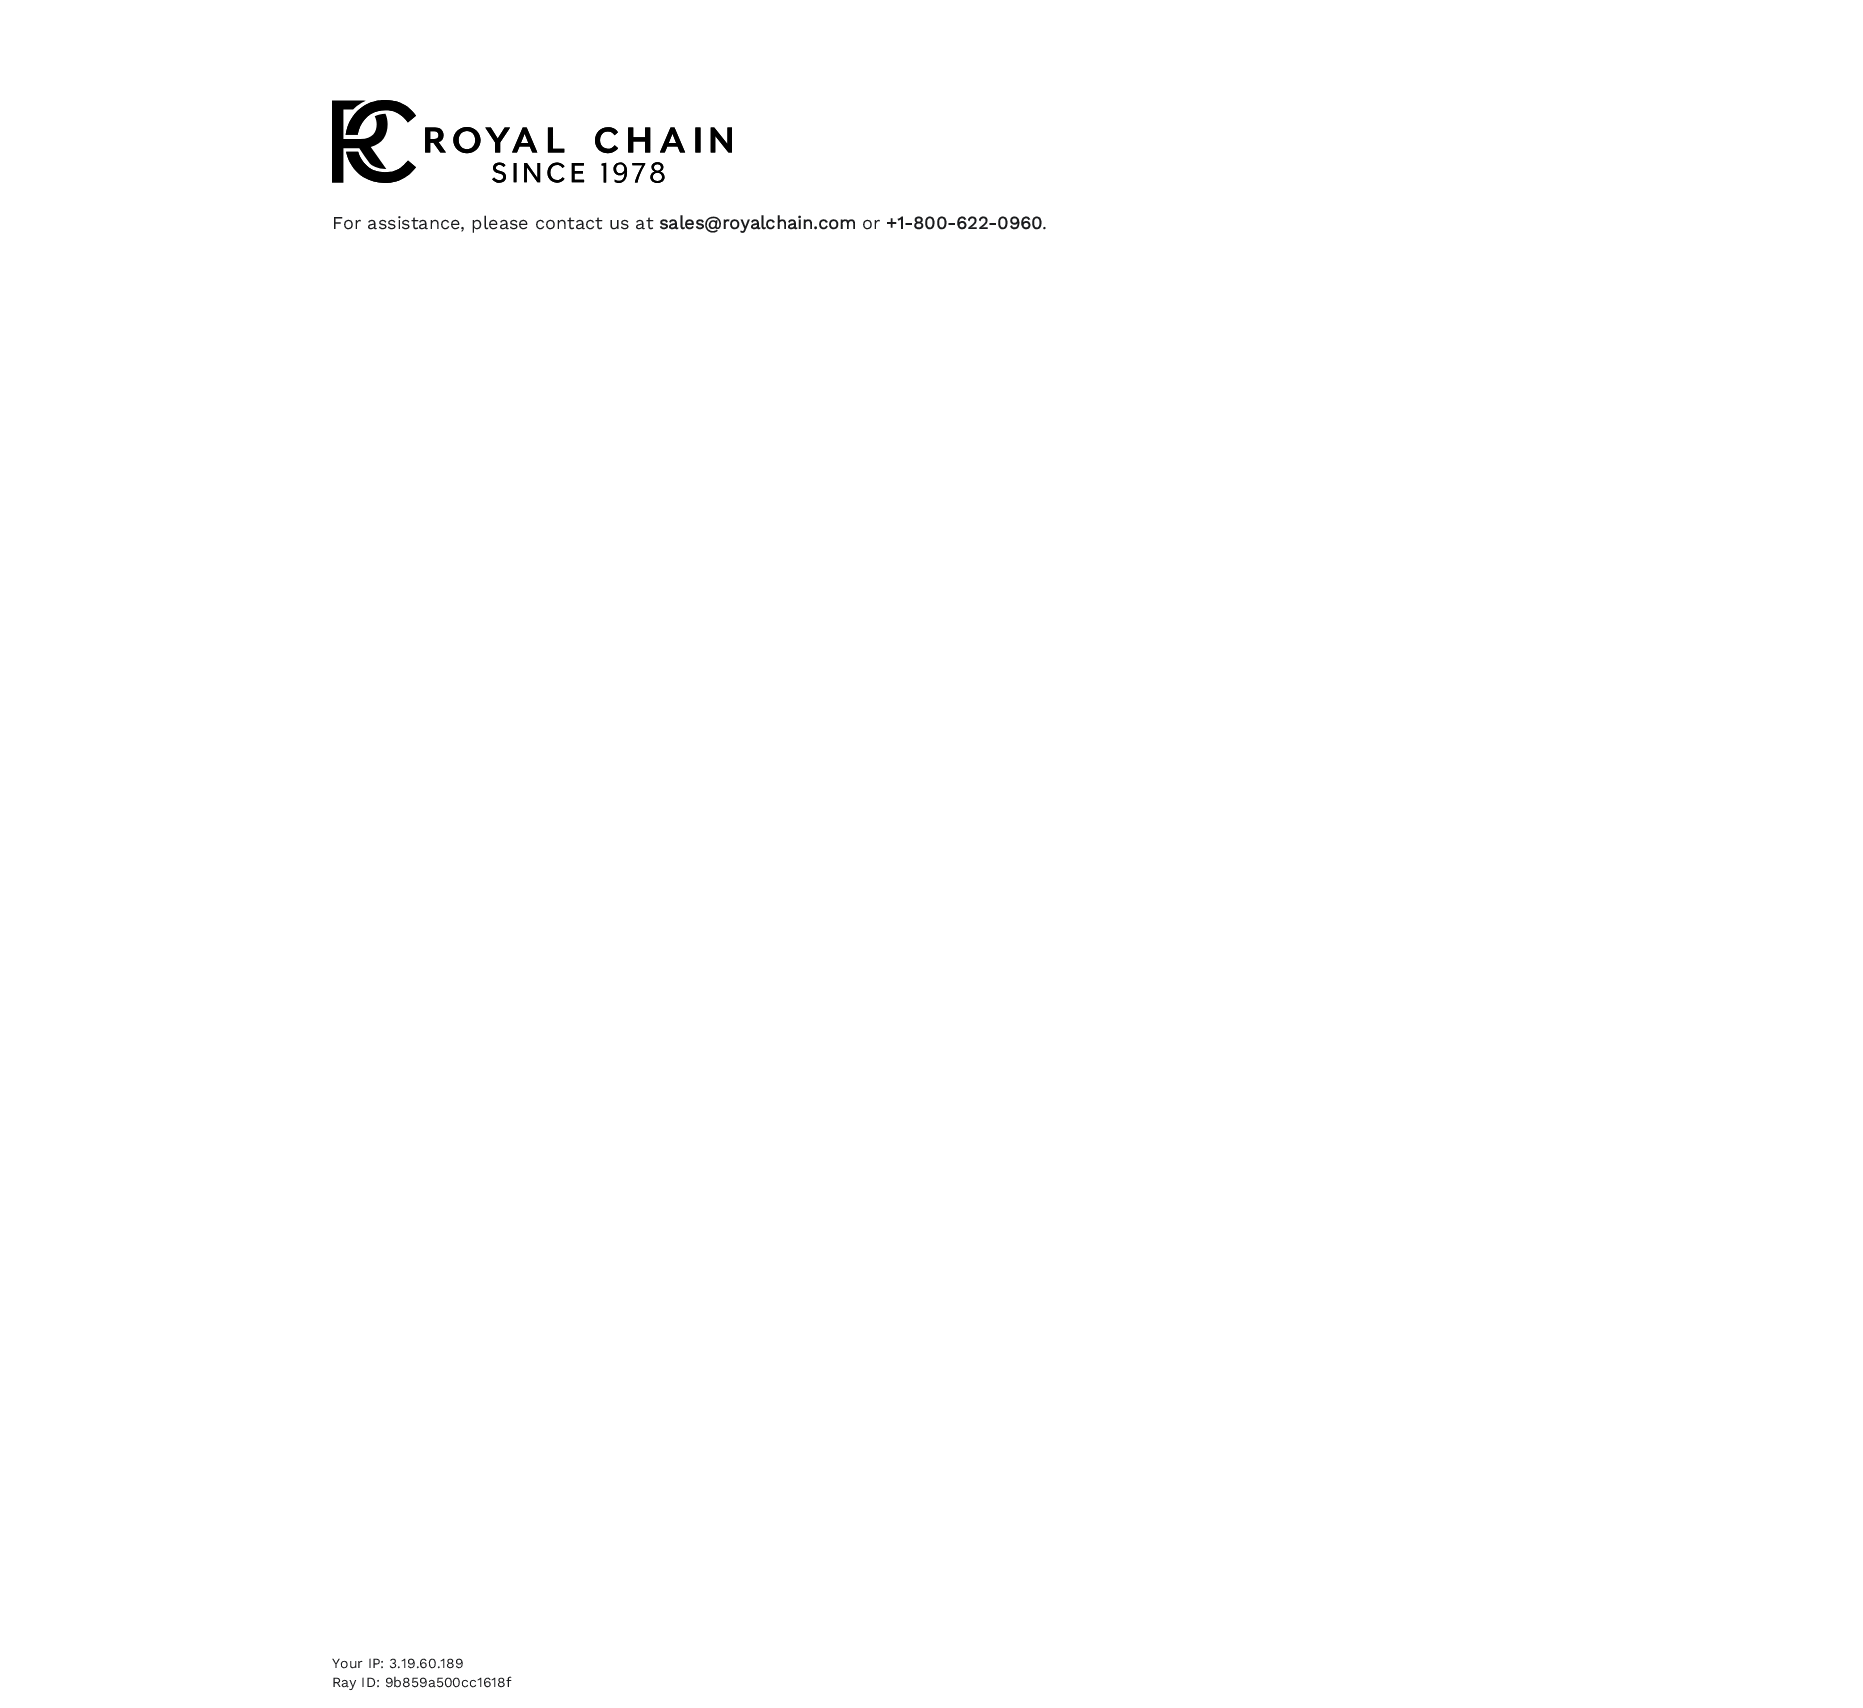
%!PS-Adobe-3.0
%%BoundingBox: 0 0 1863 1708
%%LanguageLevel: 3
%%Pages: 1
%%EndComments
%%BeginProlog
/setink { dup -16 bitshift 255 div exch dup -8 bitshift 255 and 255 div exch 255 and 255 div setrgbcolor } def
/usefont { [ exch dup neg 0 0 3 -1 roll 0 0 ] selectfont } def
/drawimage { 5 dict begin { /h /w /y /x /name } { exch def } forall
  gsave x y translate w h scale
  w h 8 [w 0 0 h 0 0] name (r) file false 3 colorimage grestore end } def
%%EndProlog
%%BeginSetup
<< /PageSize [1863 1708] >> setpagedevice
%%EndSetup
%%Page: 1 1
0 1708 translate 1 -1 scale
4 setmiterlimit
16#FFFFFF setink
0 0 1863 1708 rectfill
(img1.raw) 332 100 400 83 drawimage
/WorkSans-Regular 18 usefont
16#1A1B1D setink
332 229 moveto (For assistance, please contact us at) show
/WorkSans-Bold 18 usefont
659 229 moveto (sales@royalchain.com) show
/WorkSans-Regular 18 usefont
862 229 moveto (or) show
/WorkSans-Bold 18 usefont
886 229 moveto (+1-800-622-0960) show
/WorkSans-Regular 18 usefont
1042 229 moveto (.) show
/WorkSans-Regular 14 usefont
332 1668 moveto (Your IP: 3.19.60.189) show
332 1687 moveto (Ray ID: 9b859a500cc1618f) show
showpage
%%EOF
